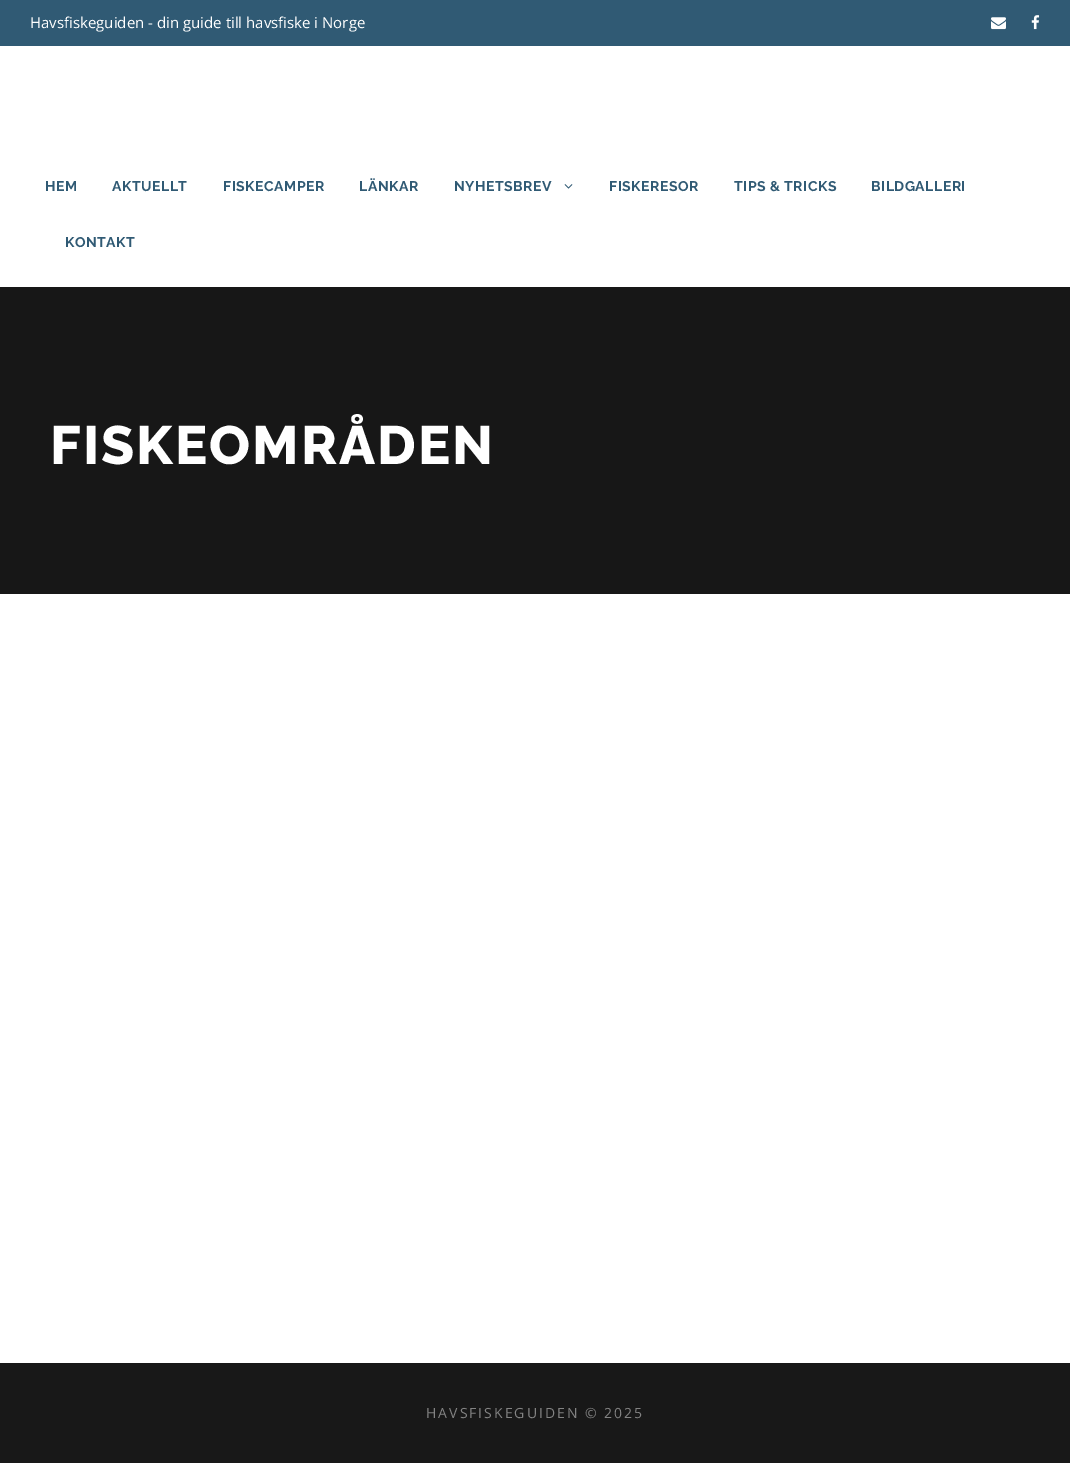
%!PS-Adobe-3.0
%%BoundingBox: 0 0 1070 1463
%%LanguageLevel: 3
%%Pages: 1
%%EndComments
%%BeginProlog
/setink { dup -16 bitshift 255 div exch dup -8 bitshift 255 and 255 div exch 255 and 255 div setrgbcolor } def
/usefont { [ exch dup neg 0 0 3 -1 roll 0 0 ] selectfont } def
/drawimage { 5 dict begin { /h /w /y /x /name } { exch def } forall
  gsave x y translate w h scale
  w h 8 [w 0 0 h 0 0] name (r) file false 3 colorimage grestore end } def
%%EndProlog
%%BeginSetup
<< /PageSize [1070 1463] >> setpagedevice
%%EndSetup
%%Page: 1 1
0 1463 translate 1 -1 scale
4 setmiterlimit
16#FFFFFF setink
0 0 1070 1463 rectfill
16#305A74 setink
0 0 1070 46 rectfill
/OpenSans-Regular 15 usefont
16#FFFFFF setink
30 28 moveto (Havsfiskeguiden - din guide till havsfiske i Norge) show
(img1.raw) 991 17 15 13 drawimage
(img2.raw) 1031 15 9 15 drawimage
/Raleway-Bold 14 usefont
16#305A74 setink
45 191 moveto 0.5 0 (HEM) ashow
112 191 moveto 0.5 0 (AKTUELLT) ashow
223 191 moveto 0.5 0 (FISKECAMPER) ashow
359 191 moveto 0.5 0 (LÄNKAR) ashow
454 191 moveto 0.5 0 (NYHETSBREV) ashow
(img3.raw) 564 184 9 5 drawimage
609 191 moveto 0.5 0 (FISKERESOR) ashow
734 191 moveto 0.5 0 (TIPS & TRICKS) ashow
871 191 moveto 0.5 0 (BILDGALLERI) ashow
65 247 moveto 0.5 0 (KONTAKT) ashow
16#171717 setink
0 287 1070 307 rectfill
/Raleway-ExtraBold 54 usefont
16#FFFFFF setink
50 464 moveto 2 0 (FISKEOMRÅDEN) ashow
16#181818 setink
0 1363 1070 100 rectfill
/OpenSans-Regular 14 usefont
16#838383 setink
426 1418 moveto 2 0 (HAVSFISKEGUIDEN © 2025) ashow
showpage
%%EOF
